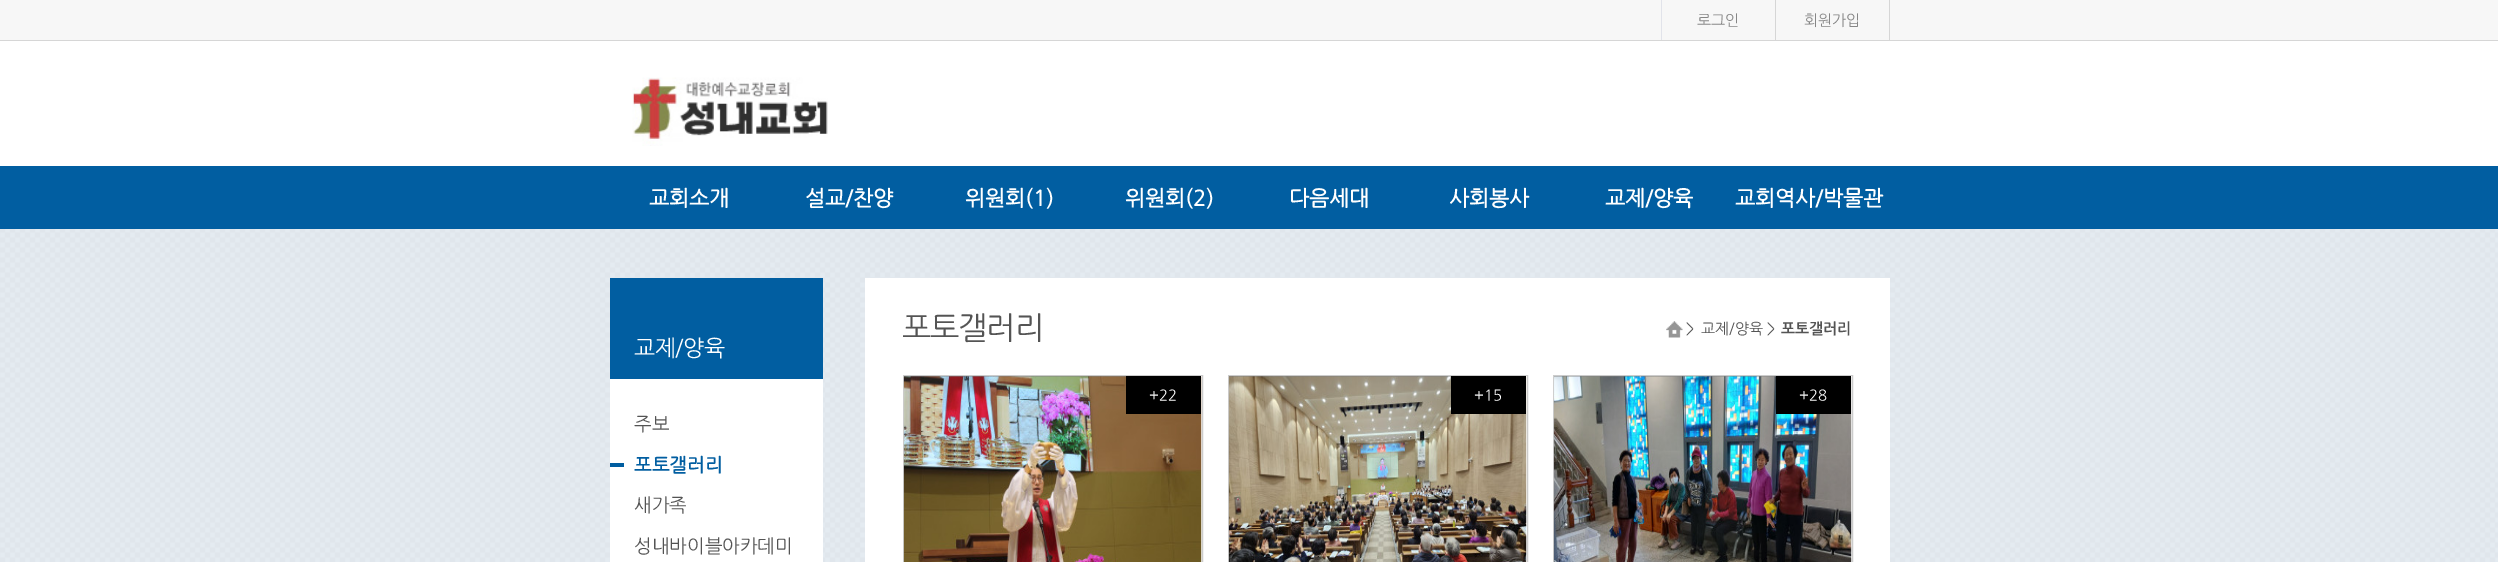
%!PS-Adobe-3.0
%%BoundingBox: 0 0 2498 562
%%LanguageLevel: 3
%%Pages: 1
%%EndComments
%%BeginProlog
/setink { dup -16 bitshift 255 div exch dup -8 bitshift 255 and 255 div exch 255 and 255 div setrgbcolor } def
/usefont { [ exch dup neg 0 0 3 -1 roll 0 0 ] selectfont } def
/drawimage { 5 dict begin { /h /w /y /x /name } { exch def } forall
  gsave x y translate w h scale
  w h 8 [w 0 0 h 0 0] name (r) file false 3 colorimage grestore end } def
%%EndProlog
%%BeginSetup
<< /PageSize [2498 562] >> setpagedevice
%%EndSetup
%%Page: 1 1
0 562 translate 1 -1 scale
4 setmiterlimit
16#FFFFFF setink
0 0 2498 562 rectfill
[
    [0 0 2498 40 16#F7F7F7]
    [0 40 2498 1 16#D6D6D6]
    [1775 0 1 40 16#D6D6D6]
    [1661 0 1 40 16#E1E3EA]
] { aload pop setink rectfill } forall
/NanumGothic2-Regular 15 usefont
16#868686 setink
1697 25 moveto (로그인) show
16#D6D6D6 setink
1889 0 1 40 rectfill
16#868686 setink
1804 25 moveto (회원가입) show
(img1.raw) 632 77 196 69 drawimage
16#015EA1 setink
0 166 2498 63 rectfill
/NanumGothic-Bold 21.25 usefont
16#FFFFFF setink
[
    [(교회소개) 649 205]
    [(설교/찬양) 805 205]
    [(위원회\(1\)) 965 205]
    [(위원회\(2\)) 1125 205]
    [(다음세대) 1289 205]
    [(사회봉사) 1449 205]
    [(교제/양육) 1605 205]
    [(교회역사/박물관) 1735 205]
] { aload pop moveto show } forall
(img2.raw) 0 229 2498 333 drawimage
610 379 213 183 rectfill
16#015EA1 setink
610 278 213 101 rectfill
/NanumGothic-Regular 22.5 usefont
16#FFFFFF setink
634 356 moveto -0.5 0 (교제/양육) ashow
/NanumGothic2-Regular 18.75 usefont
16#545454 setink
634 430 moveto (주보) show
16#005DA0 setink
610 463 14 4 rectfill
/NanumGothic-Bold 18.75 usefont
16#015EA1 setink
634 471 moveto (포토갤러리) show
/NanumGothic2-Regular 18.75 usefont
16#545454 setink
634 511 moveto (새가족) show
634 552 moveto (성내바이블아카데미) show
16#FFFFFF setink
865 278 1025 284 rectfill
/NanumGothic-Regular 31.25 usefont
16#545454 setink
902 339 moveto -1.25 0 (포토갤러리) ashow
(img3.raw) 1666 321 17 17 drawimage
/NanumGothic-Regular 15 usefont
1686 334 moveto (>) show
1701 334 moveto (교제/양육 >) show
/NanumGothic2-Bold 15 usefont
1781 334 moveto (포토갤러리) show
16#CCCCCC setink
903.5 375.5 299 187 rectstroke
16#808080 setink
904 376 222 1 rectfill
(img4.raw) 903 376 299 186 drawimage
16#000000 setink
1126 376 75 38 rectfill
/NanumGothic2-Regular 15 usefont
16#FFFFFF setink
1149 400 moveto (+22) show
16#CCCCCC setink
1228.5 375.5 299 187 rectstroke
16#808080 setink
1229 376 222 1 rectfill
(img5.raw) 1228 376 299 186 drawimage
16#000000 setink
1451 376 75 38 rectfill
16#FFFFFF setink
1474 400 moveto (+15) show
16#CCCCCC setink
1553.5 375.5 299 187 rectstroke
16#808080 setink
1554 376 222 1 rectfill
(img6.raw) 1553 376 299 186 drawimage
16#000000 setink
1776 376 75 38 rectfill
16#FFFFFF setink
1799 400 moveto (+28) show
showpage
%%EOF
